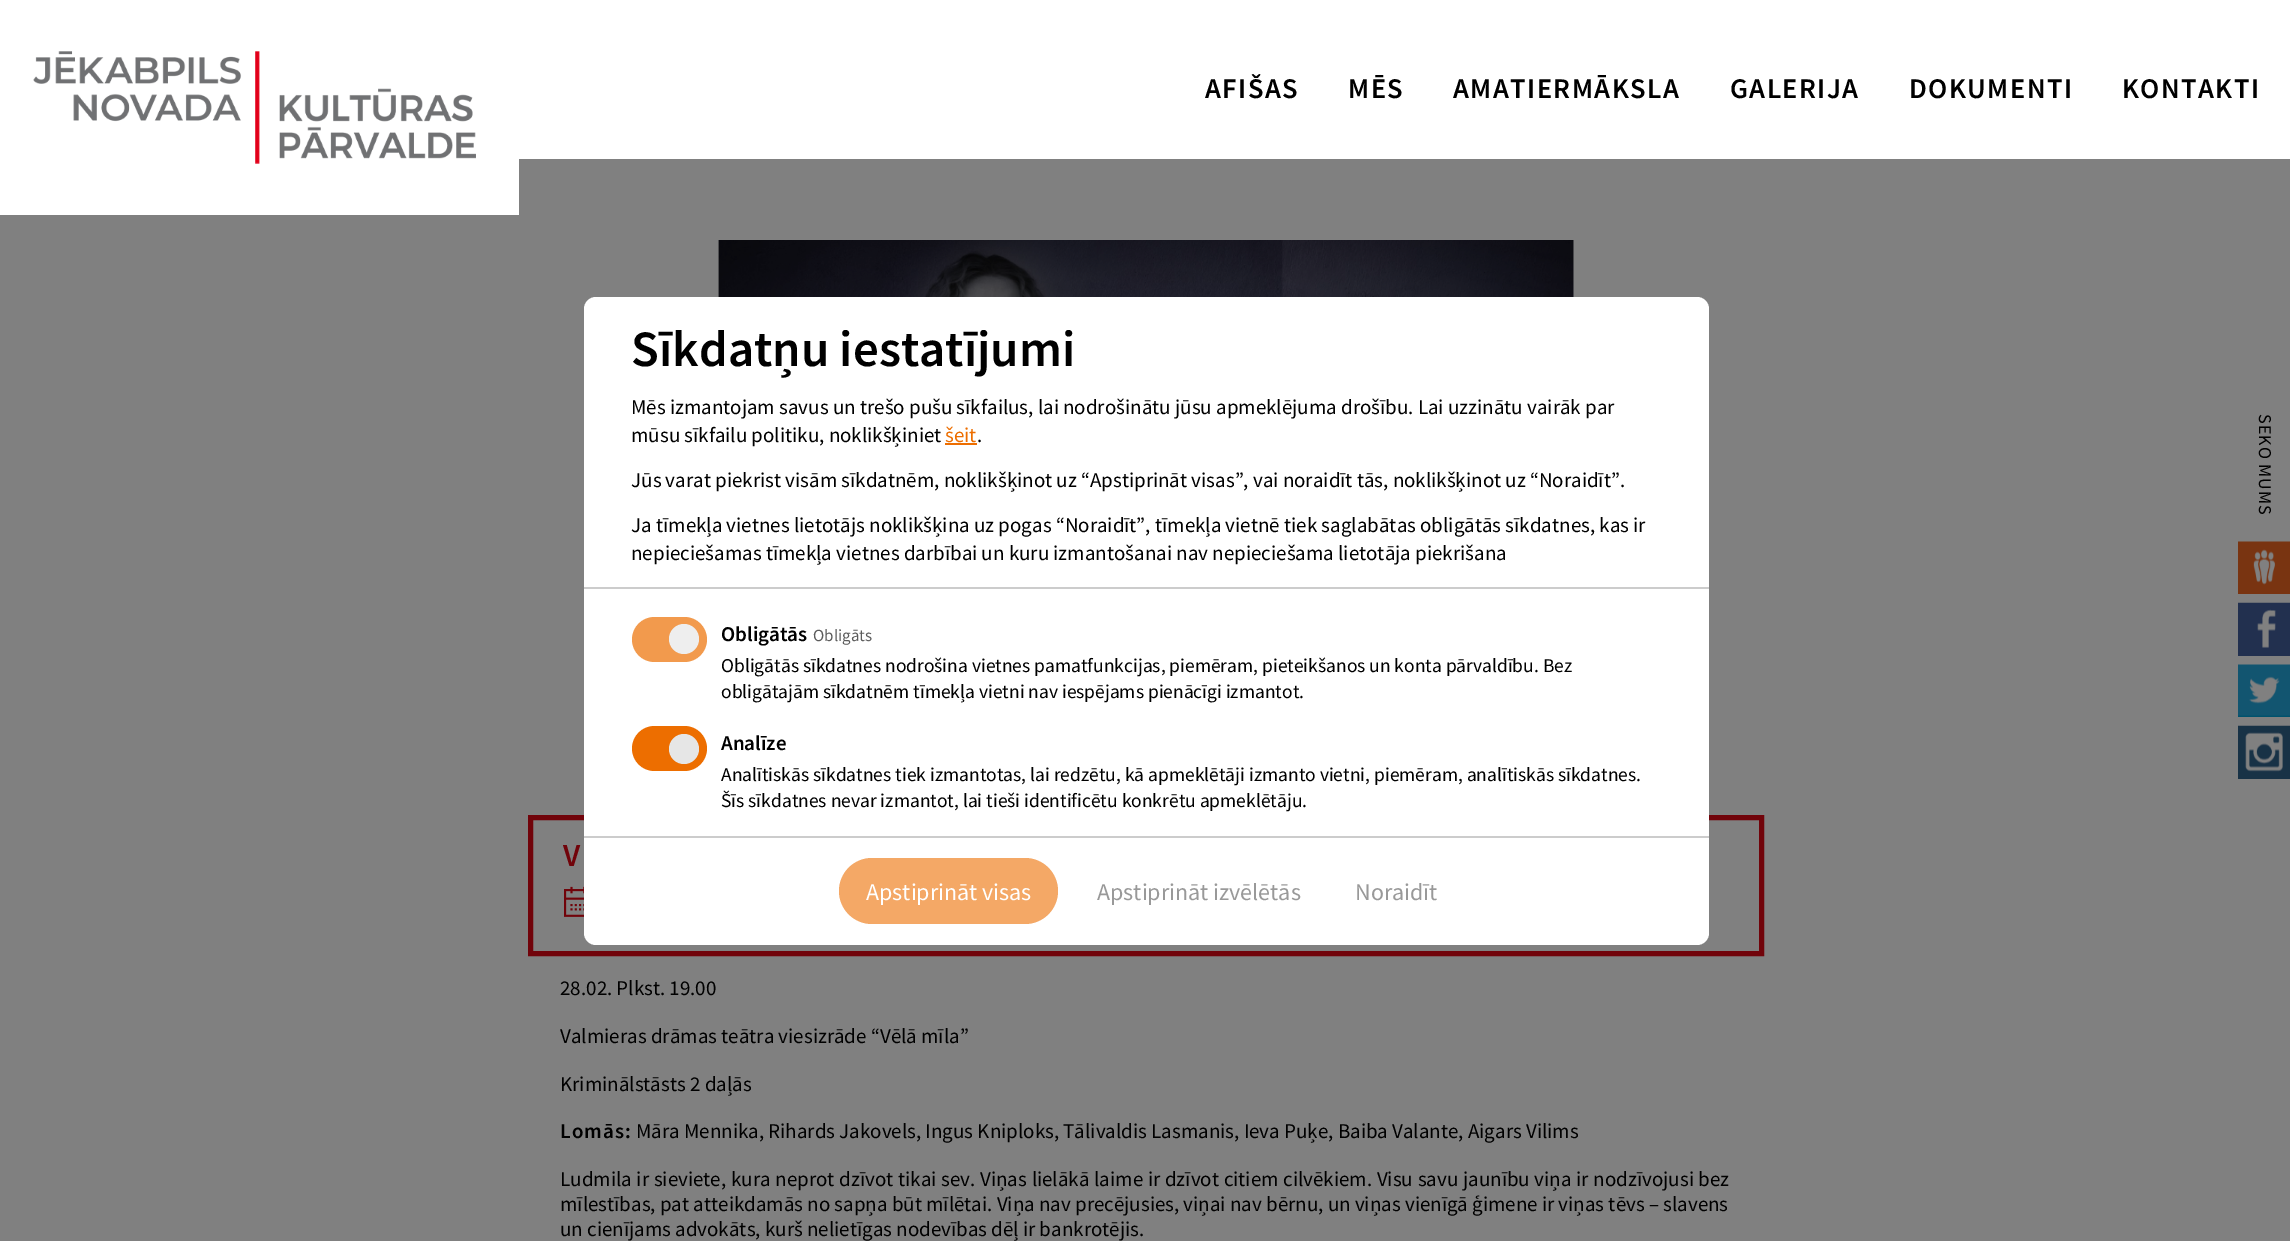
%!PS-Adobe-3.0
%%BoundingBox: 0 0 2290 1241
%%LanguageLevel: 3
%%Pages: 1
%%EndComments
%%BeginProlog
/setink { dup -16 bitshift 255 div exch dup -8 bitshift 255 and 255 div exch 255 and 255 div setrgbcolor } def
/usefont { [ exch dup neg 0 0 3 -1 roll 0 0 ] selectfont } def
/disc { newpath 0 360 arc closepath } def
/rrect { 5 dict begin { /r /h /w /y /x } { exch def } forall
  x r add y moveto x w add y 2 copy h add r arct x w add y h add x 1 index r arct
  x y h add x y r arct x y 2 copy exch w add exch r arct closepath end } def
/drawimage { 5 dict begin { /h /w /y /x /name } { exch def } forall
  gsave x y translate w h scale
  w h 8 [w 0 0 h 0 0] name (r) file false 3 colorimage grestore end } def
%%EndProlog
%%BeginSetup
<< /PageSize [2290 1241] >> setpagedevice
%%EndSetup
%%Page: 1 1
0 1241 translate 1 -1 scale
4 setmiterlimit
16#808080 setink
0 0 2290 1241 rectfill
16#FFFFFF setink
519 0 1771 159 rectfill
0 0 519 215 rectfill
(img1.raw) 33 51 443 113 drawimage
/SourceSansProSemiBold-SemiBold 28.5 usefont
16#000000 setink
1205 98 moveto 1.4 0 (AFIŠAS) ashow
1348 98 moveto 1.4 0 (MĒS) ashow
1453 98 moveto 1.4 0 (AMATIERMĀKSLA) ashow
1730 98 moveto 1.4 0 (GALERIJA) ashow
1909 98 moveto 1.4 0 (DOKUMENTI) ashow
2122 98 moveto 1.4 0 (KONTAKTI) ashow
/SourceSansPro-Regular 18 usefont
gsave 2259 414 translate 90 rotate 0 0 moveto 1 0 (SEKO MUMS) ashow grestore
16#793411 setink
2238 585 52 9 rectfill
(img2.raw) 2238 541 52 44 drawimage
16#22304F setink
2238 603 52 53 rectfill
(img3.raw) 2238 602 52 46 drawimage
16#00526D setink
2238 715 52 2 rectfill
(img4.raw) 2238 664 52 52 drawimage
16#183246 setink
2238 726 52 53 rectfill
(img5.raw) 2238 725 52 47 drawimage
(img6.raw) 718 240 856 57 drawimage
16#71030A setink
5 setlinewidth
530.5 817.5 1231 136 rectstroke
/SourceSansProSemiBold-SemiBold 32 usefont
563 866 moveto 3 0 (V) ashow
(img7.raw) 564 886 20 31 drawimage
/SourceSansPro-Regular 21 usefont
16#000000 setink
[
    [(28.02. Plkst. 19.00) 560 995]
    [(Valmieras drāmas teātra viesizrāde “Vēlā mīla”) 560 1043]
    [(Kriminālstāsts 2 daļās) 560 1091]
] { aload pop moveto show } forall
/SourceSansProSemiBold-SemiBold 21 usefont
560 1138 moveto 1 0 (Lomās:) ashow
/SourceSansPro-Regular 21 usefont
636 1138 moveto (Māra Mennika, Rihards Jakovels, Ingus Kniploks, Tālivaldis Lasmanis, Ieva Puķe, Baiba Valante, Aigars Vilims) show
560 1186 moveto 0.5 0 32 (Ludmila ir sieviete, kura neprot dzīvot tikai sev. Viņas lielākā laime ir dzīvot citiem cilvēkiem. Visu savu jaunību viņa ir nodzīvojusi bez) widthshow
560 1211 moveto (mīlestības, pat atteikdamās no sapņa būt mīlētai. Viņa nav precējusies, viņai nav bērnu, un viņas vienīgā ģimene ir viņas tēvs – slavens) show
560 1236 moveto (un cienījams advokāts, kurš nelietīgas nodevības dēļ ir bankrotējis.) show
16#FFFFFF setink
584 297 1125 648 12 rrect fill
16#CCCCCC setink
584 587 1125 2 rectfill
/SourceSansProSemiBold-SemiBold 51 usefont
16#000000 setink
631 366 moveto (Sīkdatņu iestatījumi) show
/SourceSansPro-Regular 21 usefont
631 414 moveto (Mēs izmantojam savus un trešo pušu sīkfailus, lai nodrošinātu jūsu apmeklējuma drošību. Lai uzzinātu vairāk par) show
631 442 moveto (mūsu sīkfailu politiku, noklikšķiniet) show
16#ED6E00 setink
945 442 moveto (šeit) show
945 443 32 2 rectfill
16#000000 setink
[
    [(.) 977 442]
    [(Jūs varat piekrist visām sīkdatnēm, noklikšķinot uz “Apstiprināt visas”, vai noraidīt tās, noklikšķinot uz “Noraidīt”.) 631 487]
    [(Ja tīmekļa vietnes lietotājs noklikšķina uz pogas “Noraidīt”, tīmekļa vietnē tiek saglabātas obligātās sīkdatnes, kas ir) 631 532]
    [(nepieciešamas tīmekļa vietnes darbībai un kuru izmantošanai nav nepieciešama lietotāja piekrišana) 631 560]
] { aload pop moveto show } forall
16#CCCCCC setink
584 836 1125 2 rectfill
16#F29A4D setink
632 617 75 45 22.5 rrect fill
16#EEEEEE setink
684 639 15 disc fill
/SourceSansProSemiBold-SemiBold 21 usefont
16#000000 setink
721 641 moveto (Obligātās) show
/SourceSansPro-Regular 17 usefont
16#5C5C5C setink
813 641 moveto (Obligāts) show
/SourceSansPro-Regular 19.5 usefont
16#000000 setink
721 672 moveto (Obligātās sīkdatnes nodrošina vietnes pamatfunkcijas, piemēram, pieteikšanos un konta pārvaldību. Bez) show
721 698 moveto (obligātajām sīkdatnēm tīmekļa vietni nav iespējams pienācīgi izmantot.) show
16#ED6E00 setink
632 726 75 45 22.5 rrect fill
16#E6E6E6 setink
684 749 15 disc fill
/SourceSansProSemiBold-SemiBold 21 usefont
16#000000 setink
721 750 moveto (Analīze) show
/SourceSansPro-Regular 19.5 usefont
721 781 moveto (Analītiskās sīkdatnes tiek izmantotas, lai redzētu, kā apmeklētāji izmanto vietni, piemēram, analītiskās sīkdatnes.) show
721 807 moveto (Šīs sīkdatnes nevar izmantot, lai tieši identificētu konkrētu apmeklētāju.) show
16#F4A866 setink
839 858 219 66 33 rrect fill
/SourceSansPro-Regular 24 usefont
16#FFFFFF setink
866 900 moveto (Apstiprināt visas) show
16#999999 setink
1097 900 moveto (Apstiprināt izvēlētās) show
1355 900 moveto (Noraidīt) show
showpage
%%EOF
